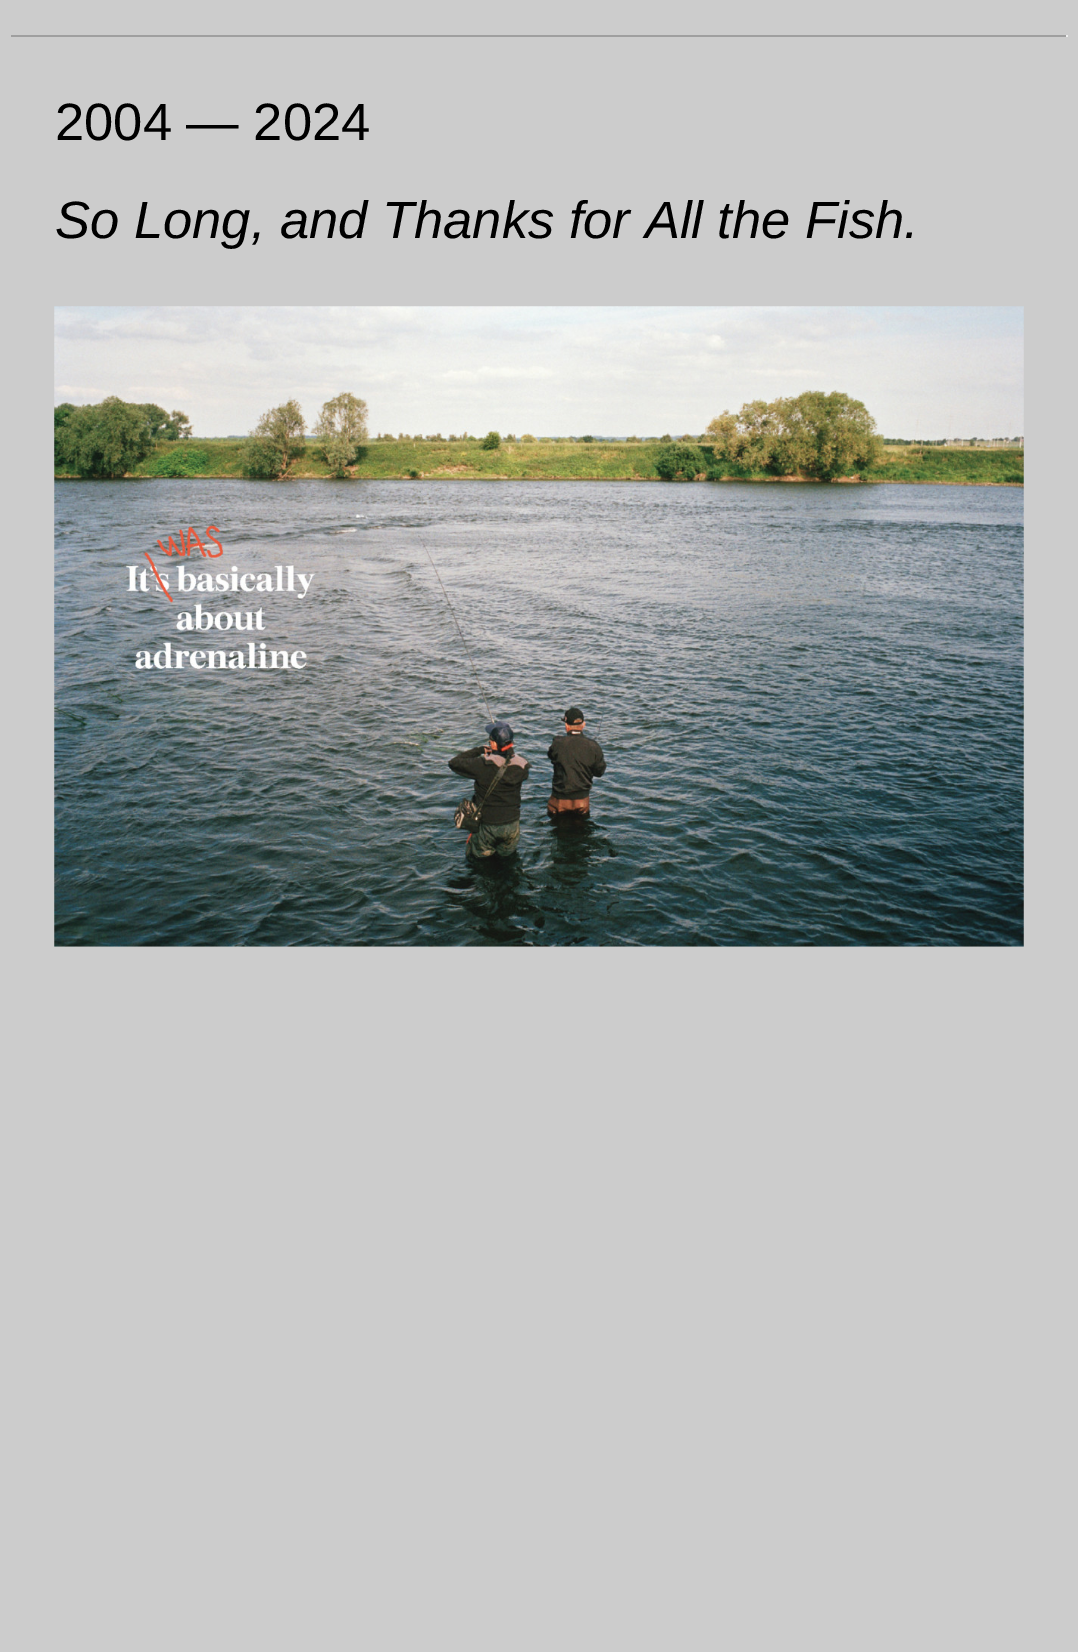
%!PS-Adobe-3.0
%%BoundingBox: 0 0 1078 1652
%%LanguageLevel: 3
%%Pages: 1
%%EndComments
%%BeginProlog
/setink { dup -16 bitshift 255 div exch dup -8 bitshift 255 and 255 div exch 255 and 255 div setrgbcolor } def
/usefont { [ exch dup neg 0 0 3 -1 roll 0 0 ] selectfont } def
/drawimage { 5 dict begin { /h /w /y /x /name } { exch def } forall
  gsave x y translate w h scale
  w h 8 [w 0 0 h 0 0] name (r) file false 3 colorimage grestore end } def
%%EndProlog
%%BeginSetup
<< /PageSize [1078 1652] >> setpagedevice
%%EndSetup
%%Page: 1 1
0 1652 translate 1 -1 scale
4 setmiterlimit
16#CCCCCC setink
0 0 1078 1652 rectfill
16#9F9F9F setink
11 35 1057 2 rectfill
16#EEEEEE setink
1066 35 2 2 rectfill
/LiberationSans-Regular 52.5 usefont
16#000000 setink
55 140 moveto (2004 — 2024) show
/LiberationSans-Italic 52.5 usefont
55 238 moveto (So Long, and Thanks for All the Fish.) show
(img1.raw) 54 306 970 641 drawimage
showpage
%%EOF
